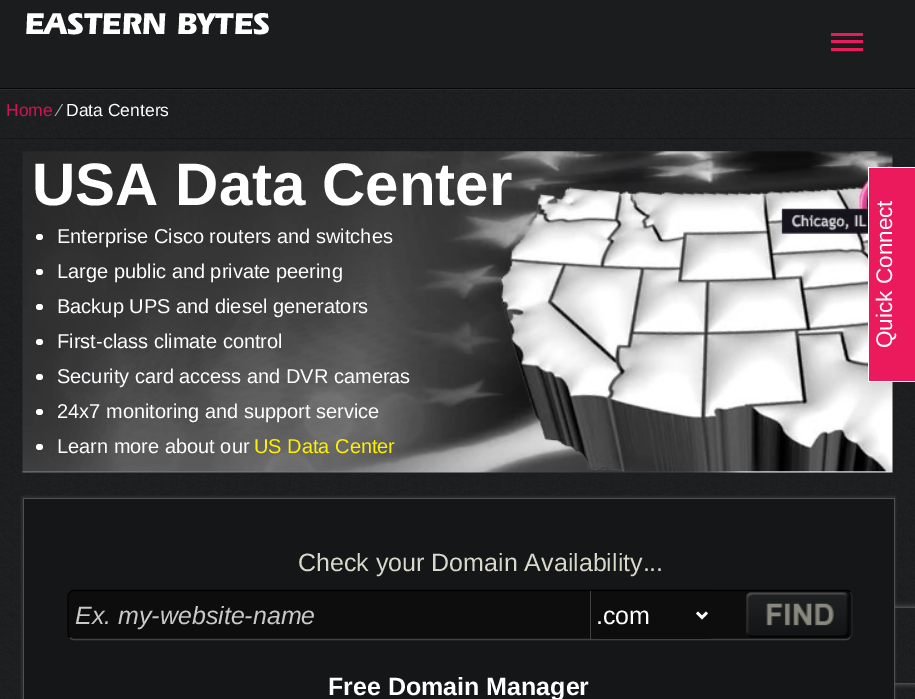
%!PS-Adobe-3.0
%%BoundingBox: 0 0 915 699
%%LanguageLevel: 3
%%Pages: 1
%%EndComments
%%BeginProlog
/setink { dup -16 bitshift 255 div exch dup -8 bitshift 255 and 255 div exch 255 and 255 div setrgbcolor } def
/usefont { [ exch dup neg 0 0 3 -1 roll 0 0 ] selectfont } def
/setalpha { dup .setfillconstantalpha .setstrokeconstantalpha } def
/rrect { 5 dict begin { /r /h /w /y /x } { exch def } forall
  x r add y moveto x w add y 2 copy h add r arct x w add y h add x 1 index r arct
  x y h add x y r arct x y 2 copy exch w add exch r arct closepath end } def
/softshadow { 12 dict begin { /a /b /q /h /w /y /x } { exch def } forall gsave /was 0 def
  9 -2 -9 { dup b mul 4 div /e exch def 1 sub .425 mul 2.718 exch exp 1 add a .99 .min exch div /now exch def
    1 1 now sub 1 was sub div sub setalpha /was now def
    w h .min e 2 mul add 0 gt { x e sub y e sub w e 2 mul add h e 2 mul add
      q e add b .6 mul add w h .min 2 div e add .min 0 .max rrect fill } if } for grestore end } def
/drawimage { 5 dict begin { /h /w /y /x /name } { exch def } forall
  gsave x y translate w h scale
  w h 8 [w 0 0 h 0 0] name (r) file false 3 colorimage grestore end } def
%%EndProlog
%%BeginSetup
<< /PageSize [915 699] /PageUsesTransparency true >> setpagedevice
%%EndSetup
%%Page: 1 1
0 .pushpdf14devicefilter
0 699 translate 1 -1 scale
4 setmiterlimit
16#FFFFFF setink
0 0 915 699 rectfill
(img1.raw) 0 138 915 561 drawimage
16#1B1C1D setink
0 0 915 88 rectfill
/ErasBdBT-Bold 31.25 usefont
16#FFFFFF setink
25 34 moveto (EASTERN BYTES) show
[
    [831 33 32 3 16#EB1A5C]
    [831 48 32 3 16#EB1A5C]
    [831 40 32 3 16#EB1A5C]
] { aload pop setink rectfill } forall
(img2.raw) 0 90 915 49 drawimage
16#2B2D2D setink
0 89 915 1 rectfill
16#060707 setink
0 88 915 1 rectfill
/LiberationSans-Regular 17.5 usefont
16#D01450 setink
6 116 moveto (Home) show
16#ADB5BC setink
58 116 moveto (⁄) show
16#FFFFFF setink
66 116 moveto (Data Centers) show
(img3.raw) 22 151 871 322 drawimage
/LiberationSans-Bold 60 usefont
32 205 moveto (USA Data Center) show
36 234 7 6 3 rrect fill
/LiberationSans-Regular 20 usefont
57 243 moveto (Enterprise Cisco routers and switches) show
36 269 7 6 3 rrect fill
57 278 moveto (Large public and private peering) show
36 304 7 6 3 rrect fill
57 313 moveto (Backup UPS and diesel generators) show
36 339 7 6 3 rrect fill
57 348 moveto (First-class climate control) show
36 374 7 6 3 rrect fill
57 383 moveto (Security card access and DVR cameras) show
36 409 7 6 3 rrect fill
57 418 moveto (24x7 monitoring and support service) show
36 444 7 6 3 rrect fill
57 453 moveto (Learn more about our) show
16#FFF000 setink
254 453 moveto (US Data Center) show
16#2B2D2D setink
21 496 875 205 0 0.5 1 softshadow
gsave
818 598 moveto 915 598 lineto 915 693 lineto 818 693 lineto closepath 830.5 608 moveto 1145.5 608 lineto 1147 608 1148 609 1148 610.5 curveto 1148 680.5 lineto 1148 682 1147 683 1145.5 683 curveto 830.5 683 lineto 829 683 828 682 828 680.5 curveto 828 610.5 lineto 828 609 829 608 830.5 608 curveto closepath eoclip newpath
16#808080 setink
828 608 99 75 2.5 3 1 softshadow
grestore
[
    [24 499 870 200 16#151617]
    [23 498 872 1 16#505152]
    [894 498 1 201 16#505152]
    [23 498 1 201 16#505152]
] { aload pop setink rectfill } forall
/LiberationSans-Regular 25 usefont
16#D8D8CB setink
298 571 moveto (Check your Domain Availability...) show
16#0D0D0E setink
68 590 785 50 6 rrect fill
16#000000 setink
1.2 setlinewidth
70 592.5 moveto 71 591 72.5 590.5 74 590.5 curveto 846 590.5 lineto 847.5 590.5 849 591 850 592.5 curveto stroke
16#252526 setink
850 592.5 moveto 851.5 593.5 852 595 852 596 curveto 852 634 lineto 852 635 851.5 636.5 850 637.5 curveto stroke
16#424243 setink
850 637.5 moveto 849 639 847.5 639.5 846 639.5 curveto 74 639.5 lineto 72.5 639.5 71 639 70 637.5 curveto stroke
16#030303 setink
70 637.5 moveto 68.5 636.5 68 635 68 634 curveto 68 596 lineto 68 595 68.5 593.5 70 592.5 curveto stroke
16#424243 setink
590 591 1 48 rectfill
/LiberationSans-Italic 25 usefont
16#C9C9C8 setink
75 624 moveto (Ex. my-website-name) show
16#0D0D0E setink
591 591 122 48 4 rrect fill
16#FFFFFF setink
2.5 setlinewidth
697 612.5 moveto 702 617.5 lineto 707 612.5 lineto stroke
/LiberationSans-Regular 25 usefont
596 624 moveto (.com) show
(img4.raw) 746 592 103 46 drawimage
/LiberationSans-Bold 25 usefont
328 695 moveto (Free Domain Manager) show
[
    [869 168 46 213 16#EB1A5C]
    [868 167 1 215 16#FFFFFF]
    [868 167 47 1 16#FFFFFF]
    [868 381 47 1 16#FFFFFF]
] { aload pop setink rectfill } forall
/LiberationSans-Regular 22.5 usefont
gsave 892 348 translate -90 rotate 0 0 moveto (Quick Connect) show grestore
.poppdf14devicefilter showpage
%%EOF
